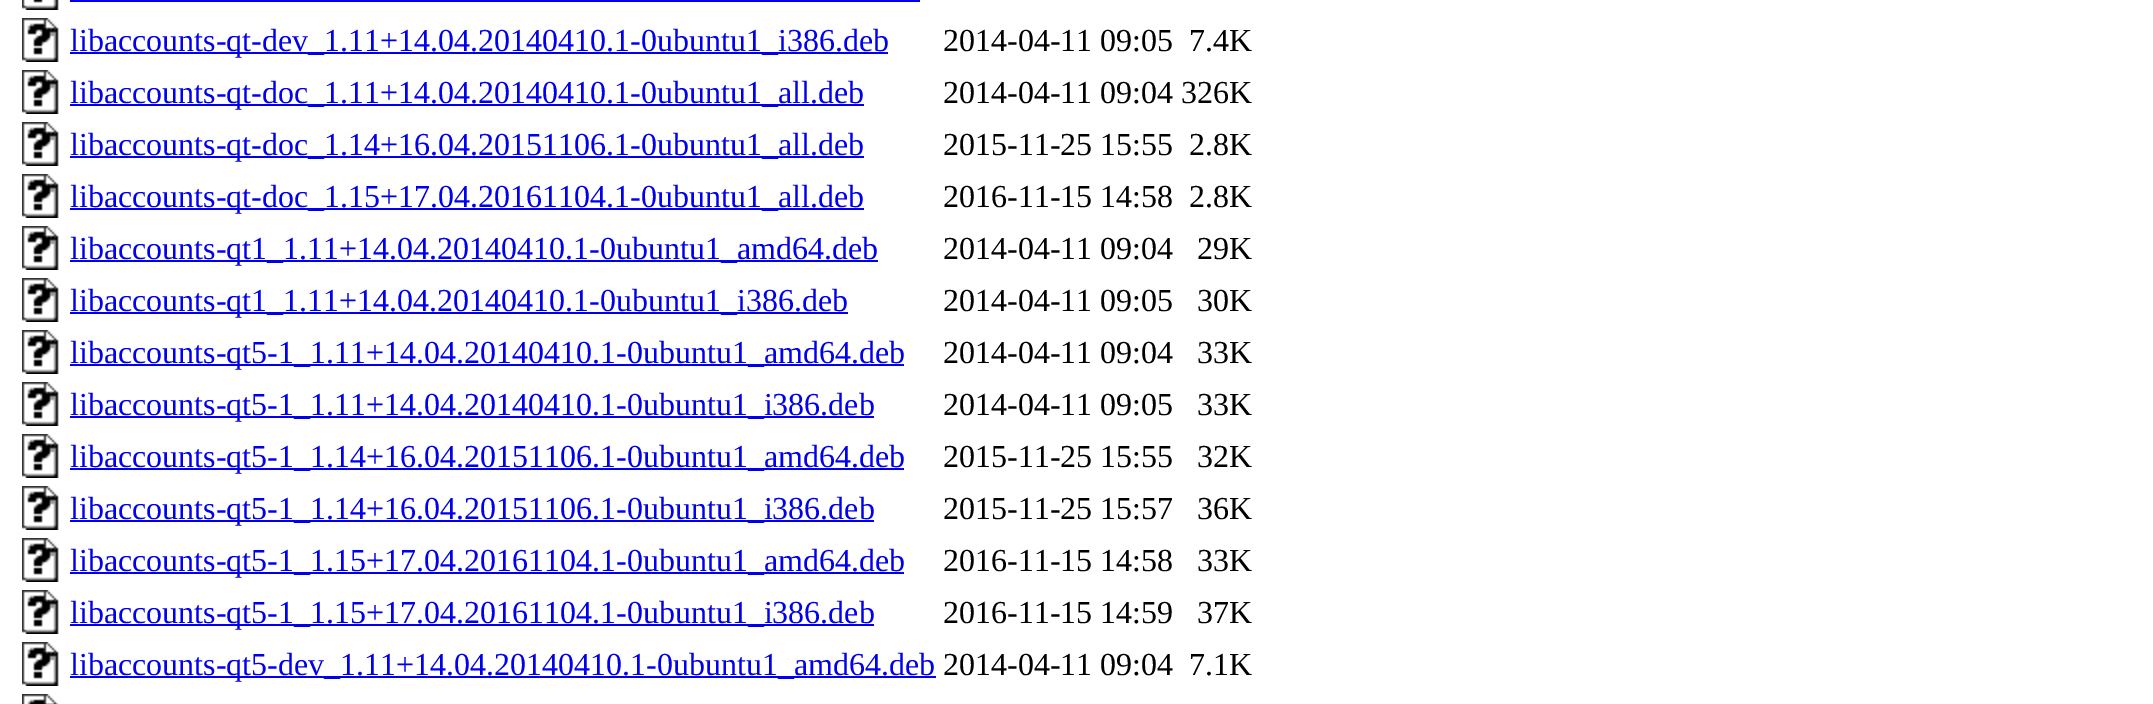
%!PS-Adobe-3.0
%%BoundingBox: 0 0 2153 704
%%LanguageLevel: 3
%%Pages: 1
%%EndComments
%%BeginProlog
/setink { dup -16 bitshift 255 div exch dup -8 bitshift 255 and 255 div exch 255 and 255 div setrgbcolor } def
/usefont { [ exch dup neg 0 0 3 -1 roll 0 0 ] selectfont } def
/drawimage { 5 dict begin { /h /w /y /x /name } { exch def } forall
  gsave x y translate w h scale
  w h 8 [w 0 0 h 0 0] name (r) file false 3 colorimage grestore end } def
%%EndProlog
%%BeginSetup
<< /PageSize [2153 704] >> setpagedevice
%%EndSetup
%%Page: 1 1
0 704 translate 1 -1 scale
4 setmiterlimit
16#FFFFFF setink
0 0 2153 704 rectfill
(img1.raw) 22 0 37 10 drawimage
16#0000EE setink
70 0 850 2 rectfill
(img2.raw) 22 18 37 44 drawimage
70 52 818 2 rectfill
/LiberationSerif-Regular 32 usefont
70 51 moveto (libaccounts-qt-dev_1.11+14.04.20140410.1-0ubuntu1_i386.deb) show
16#000000 setink
943 51 moveto (2014-04-11 09:05) show
1189 51 moveto (7.4K) show
(img2.raw) 22 70 37 44 drawimage
16#0000EE setink
70 104 794 2 rectfill
70 103 moveto (libaccounts-qt-doc_1.11+14.04.20140410.1-0ubuntu1_all.deb) show
16#000000 setink
943 103 moveto (2014-04-11 09:04 326K) show
(img2.raw) 22 122 37 44 drawimage
16#0000EE setink
70 156 794 2 rectfill
70 155 moveto (libaccounts-qt-doc_1.14+16.04.20151106.1-0ubuntu1_all.deb) show
16#000000 setink
943 155 moveto (2015-11-25 15:55) show
1189 155 moveto (2.8K) show
(img2.raw) 22 174 37 44 drawimage
16#0000EE setink
70 208 794 2 rectfill
70 207 moveto (libaccounts-qt-doc_1.15+17.04.20161104.1-0ubuntu1_all.deb) show
16#000000 setink
943 207 moveto (2016-11-15 14:58) show
1189 207 moveto (2.8K) show
(img2.raw) 22 226 37 44 drawimage
16#0000EE setink
70 260 808 2 rectfill
70 259 moveto (libaccounts-qt1_1.11+14.04.20140410.1-0ubuntu1_amd64.deb) show
16#000000 setink
943 259 moveto (2014-04-11 09:04) show
1197 259 moveto (29K) show
(img2.raw) 22 278 37 44 drawimage
16#0000EE setink
70 312 778 2 rectfill
70 311 moveto (libaccounts-qt1_1.11+14.04.20140410.1-0ubuntu1_i386.deb) show
16#000000 setink
943 311 moveto (2014-04-11 09:05) show
1197 311 moveto (30K) show
(img2.raw) 22 330 37 44 drawimage
16#0000EE setink
70 364 834 2 rectfill
70 363 moveto (libaccounts-qt5-1_1.11+14.04.20140410.1-0ubuntu1_amd64.deb) show
16#000000 setink
943 363 moveto (2014-04-11 09:04) show
1197 363 moveto (33K) show
(img2.raw) 22 382 37 44 drawimage
16#0000EE setink
70 416 804 2 rectfill
70 415 moveto (libaccounts-qt5-1_1.11+14.04.20140410.1-0ubuntu1_i386.deb) show
16#000000 setink
943 415 moveto (2014-04-11 09:05) show
1197 415 moveto (33K) show
(img2.raw) 22 434 37 44 drawimage
16#0000EE setink
70 468 834 2 rectfill
70 467 moveto (libaccounts-qt5-1_1.14+16.04.20151106.1-0ubuntu1_amd64.deb) show
16#000000 setink
943 467 moveto (2015-11-25 15:55) show
1197 467 moveto (32K) show
(img2.raw) 22 486 37 44 drawimage
16#0000EE setink
70 520 804 2 rectfill
70 519 moveto (libaccounts-qt5-1_1.14+16.04.20151106.1-0ubuntu1_i386.deb) show
16#000000 setink
943 519 moveto (2015-11-25 15:57) show
1197 519 moveto (36K) show
(img2.raw) 22 538 37 44 drawimage
16#0000EE setink
70 572 834 2 rectfill
70 571 moveto (libaccounts-qt5-1_1.15+17.04.20161104.1-0ubuntu1_amd64.deb) show
16#000000 setink
943 571 moveto (2016-11-15 14:58) show
1197 571 moveto (33K) show
(img2.raw) 22 590 37 44 drawimage
16#0000EE setink
70 624 804 2 rectfill
70 623 moveto (libaccounts-qt5-1_1.15+17.04.20161104.1-0ubuntu1_i386.deb) show
16#000000 setink
943 623 moveto (2016-11-15 14:59) show
1197 623 moveto (37K) show
(img2.raw) 22 642 37 44 drawimage
16#0000EE setink
70 676 866 2 rectfill
70 675 moveto (libaccounts-qt5-dev_1.11+14.04.20140410.1-0ubuntu1_amd64.deb) show
16#000000 setink
943 675 moveto (2014-04-11 09:04) show
1189 675 moveto (7.1K) show
(img3.raw) 22 694 37 10 drawimage
showpage
%%EOF
